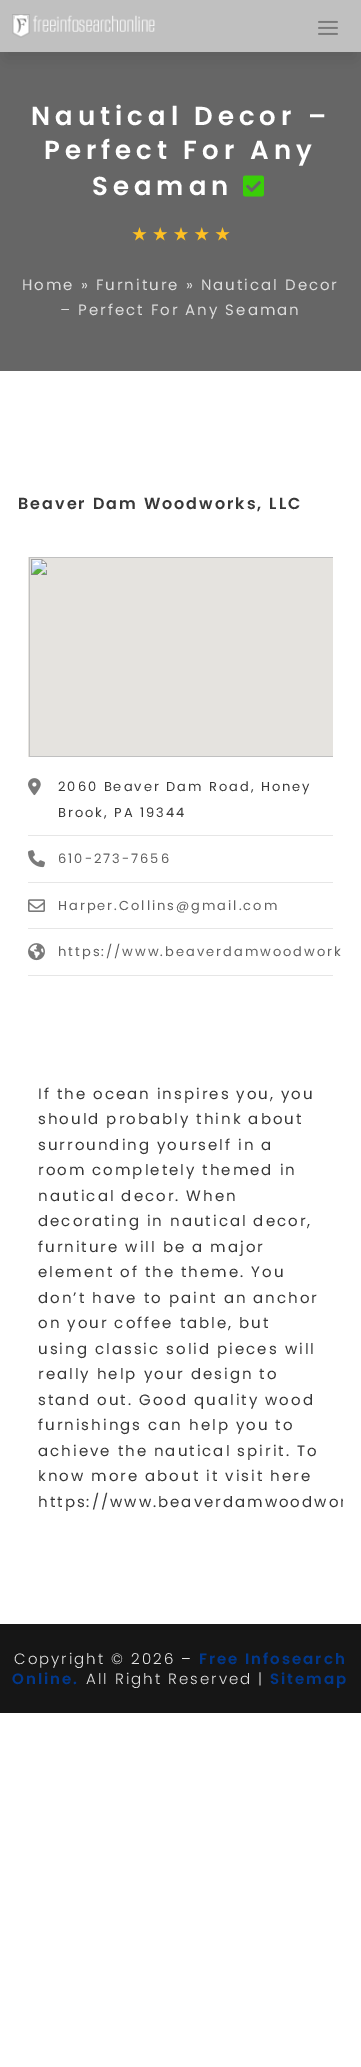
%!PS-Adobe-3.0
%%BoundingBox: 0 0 361 2067
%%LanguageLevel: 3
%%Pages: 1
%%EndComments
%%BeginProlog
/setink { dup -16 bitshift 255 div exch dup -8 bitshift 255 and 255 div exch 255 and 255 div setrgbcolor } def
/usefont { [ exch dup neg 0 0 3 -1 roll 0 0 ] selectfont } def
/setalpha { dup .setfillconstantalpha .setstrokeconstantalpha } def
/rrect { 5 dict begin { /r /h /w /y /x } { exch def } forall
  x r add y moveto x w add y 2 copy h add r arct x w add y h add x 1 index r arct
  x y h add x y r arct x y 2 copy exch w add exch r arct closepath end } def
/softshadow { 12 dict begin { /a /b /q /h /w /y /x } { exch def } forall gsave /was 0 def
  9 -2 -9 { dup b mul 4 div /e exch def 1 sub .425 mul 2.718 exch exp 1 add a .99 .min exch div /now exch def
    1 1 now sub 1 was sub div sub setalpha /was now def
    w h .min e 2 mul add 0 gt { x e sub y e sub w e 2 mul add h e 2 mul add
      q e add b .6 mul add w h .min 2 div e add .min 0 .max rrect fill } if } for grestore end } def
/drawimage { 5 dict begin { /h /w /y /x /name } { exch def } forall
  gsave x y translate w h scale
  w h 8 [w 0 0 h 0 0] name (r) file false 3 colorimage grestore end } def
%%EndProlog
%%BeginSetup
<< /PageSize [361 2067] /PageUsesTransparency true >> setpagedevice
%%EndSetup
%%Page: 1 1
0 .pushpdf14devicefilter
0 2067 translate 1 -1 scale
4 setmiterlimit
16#FFFFFF setink
0 0 361 2067 rectfill
16#666666 setink
0 52 361 319 rectfill
16#000000 setink
6 18 349 40 0 9 0.1 softshadow
16#C0C0C0 setink
0 0 361 52 rectfill
(img1.raw) 12 14 143 24 drawimage
(img2.raw) 318 20 20 15 drawimage
/Poppins-SemiBold 26 usefont
16#FFFFFF setink
31 125 moveto 5 0 (Nautical Decor –) ashow
44 159 moveto 5 0 (Perfect For Any) ashow
92 195 moveto 5 0 (Seaman) ashow
(img3.raw) 243 175 21 22 drawimage
(img4.raw) 132 227 98 14 drawimage
/Poppins-Regular 15 usefont
16#DDDDDD setink
22 290 moveto 2 0 (Home » Furniture » Nautical Decor) ashow
60 315 moveto 2 0 (– Perfect For Any Seaman) ashow
/Poppins-SemiBold 16 usefont
16#383838 setink
18 509 moveto 2 0 (Beaver Dam Woodworks, LLC) ashow
(img5.raw) 28 557 305 200 drawimage
16#E6E6E6 setink
28 835 305 1 rectfill
(img6.raw) 28 778 13 18 drawimage
/Poppins-Regular 13 usefont
16#383838 setink
58 791 moveto 2 0 (2060 Beaver Dam Road, Honey) ashow
58 817 moveto 2 0 (Brook, PA 19344) ashow
16#E6E6E6 setink
28 882 305 1 rectfill
(img7.raw) 28 850 17 18 drawimage
16#606060 setink
58 863 moveto 2 0 (610-273-7656) ashow
16#E6E6E6 setink
28 928 305 1 rectfill
(img8.raw) 28 899 17 13 drawimage
16#606060 setink
58 910 moveto 2 0 (Harper.Collins@gmail.com) ashow
16#E6E6E6 setink
28 975 305 1 rectfill
(img9.raw) 28 943 17 18 drawimage
16#606060 setink
58 956 moveto 2 0 (https://www.beaverdamwoodwork) ashow
/Poppins-Regular 15 usefont
16#383838 setink
38 1099 moveto 2 0 (If the ocean inspires you, you) ashow
38 1124 moveto 2 0 (should probably think about) ashow
38 1150 moveto 2 0 (surrounding yourself in a) ashow
38 1175 moveto 2 0 (room completely themed in) ashow
38 1201 moveto 2 0 (nautical decor. When) ashow
38 1226 moveto 2 0 (decorating in nautical decor,) ashow
38 1252 moveto 2 0 (furniture will be a major) ashow
38 1277 moveto 2 0 (element of the theme. You) ashow
38 1303 moveto 2 0 (don’t have to paint an anchor) ashow
38 1328 moveto 2 0 (on your coffee table, but) ashow
38 1354 moveto 2 0 (using classic solid pieces will) ashow
38 1379 moveto 2 0 (really help your design to) ashow
38 1405 moveto 2 0 (stand out. Good quality wood) ashow
38 1430 moveto 2 0 (furnishings can help you to) ashow
38 1456 moveto 2 0 (achieve the nautical spirit. To) ashow
38 1481 moveto 2 0 (know more about it visit here) ashow
gsave
18 1061 325 473 10 rrect clip newpath
38 1507 moveto 2 0 (https://www.beaverdamwoodwor) ashow
grestore
16#161616 setink
0 1624 361 89 rectfill
/Poppins-Light 15 usefont
16#E5E5E5 setink
14 1664 moveto 2 0 (Copyright © 2026 –) ashow
/Poppins-SemiBold 15 usefont
16#00378C setink
199 1664 moveto 2 0 (Free Infosearch) ashow
12 1684 moveto 2 0 (Online.) ashow
/Poppins-Light 15 usefont
16#E5E5E5 setink
86 1684 moveto 2 0 (All Right Reserved |) ashow
/Poppins-SemiBold 15 usefont
16#00378C setink
270 1684 moveto 2 0 (Sitemap) ashow
.poppdf14devicefilter showpage
%%EOF
